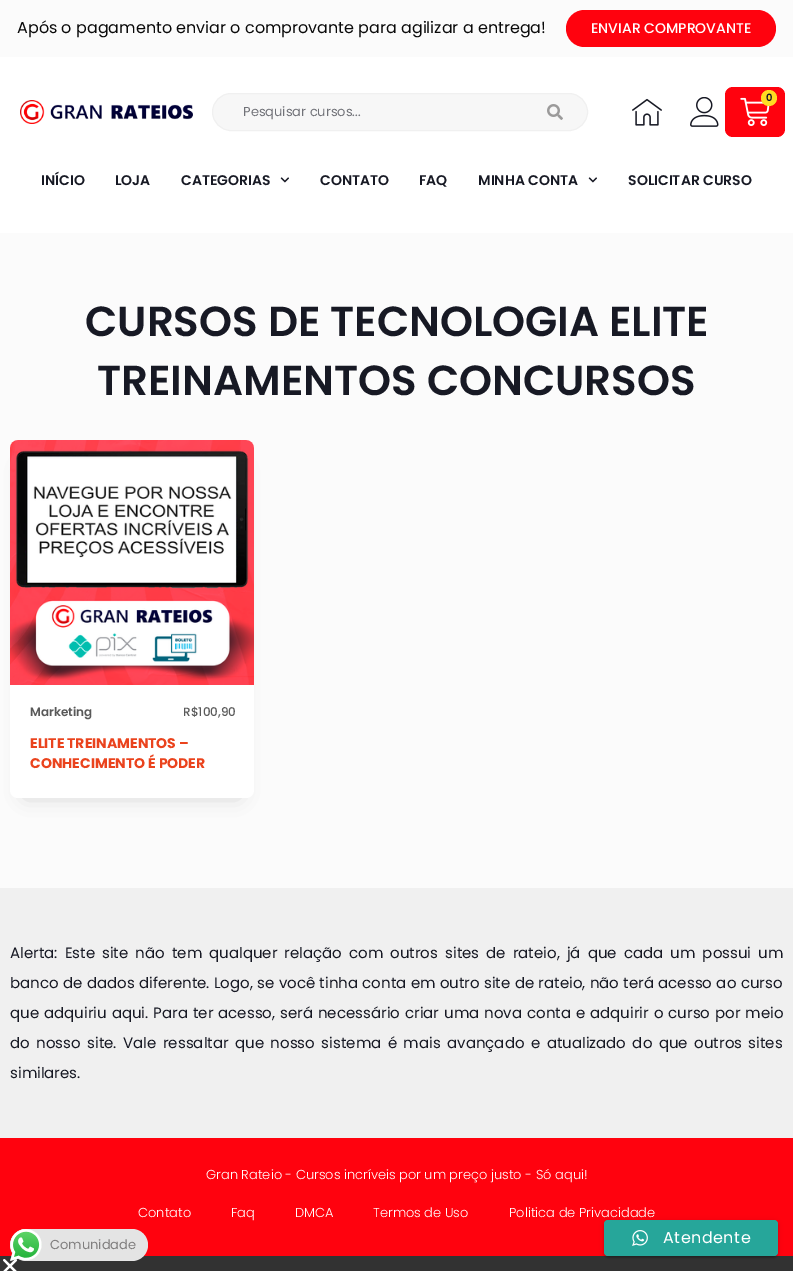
%!PS-Adobe-3.0
%%BoundingBox: 0 0 793 1271
%%LanguageLevel: 3
%%Pages: 1
%%EndComments
%%BeginProlog
/setink { dup -16 bitshift 255 div exch dup -8 bitshift 255 and 255 div exch 255 and 255 div setrgbcolor } def
/usefont { [ exch dup neg 0 0 3 -1 roll 0 0 ] selectfont } def
/setalpha { dup .setfillconstantalpha .setstrokeconstantalpha } def
/disc { newpath 0 360 arc closepath } def
/rrect { 5 dict begin { /r /h /w /y /x } { exch def } forall
  x r add y moveto x w add y 2 copy h add r arct x w add y h add x 1 index r arct
  x y h add x y r arct x y 2 copy exch w add exch r arct closepath end } def
/softshadow { 12 dict begin { /a /b /q /h /w /y /x } { exch def } forall gsave /was 0 def
  9 -2 -9 { dup b mul 4 div /e exch def 1 sub .425 mul 2.718 exch exp 1 add a .99 .min exch div /now exch def
    1 1 now sub 1 was sub div sub setalpha /was now def
    w h .min e 2 mul add 0 gt { x e sub y e sub w e 2 mul add h e 2 mul add
      q e add b .6 mul add w h .min 2 div e add .min 0 .max rrect fill } if } for grestore end } def
/drawimage { 5 dict begin { /h /w /y /x /name } { exch def } forall
  gsave x y translate w h scale
  w h 8 [w 0 0 h 0 0] name (r) file false 3 colorimage grestore end } def
%%EndProlog
%%BeginSetup
<< /PageSize [793 1271] /PageUsesTransparency true >> setpagedevice
%%EndSetup
%%Page: 1 1
0 .pushpdf14devicefilter
0 1271 translate 1 -1 scale
4 setmiterlimit
16#FBFBFB setink
0 0 793 1271 rectfill
/Poppins-Regular 16 usefont
16#0A0A0A setink
17 33 moveto (Após o pagamento enviar o comprovante para agilizar a entrega!) show
16#FF020E setink
566 10 210 37 18.5 rrect fill
/Poppins-Medium 14 usefont
16#FFFFFF setink
591 33 moveto (ENVIAR COMPROVANTE) show
0 57 793 176 rectfill
(img1.raw) 20 100 173 24 drawimage
16#F7F7F7 setink
212.5 93.5 375 37 18.5 rrect gsave fill grestore
16#F0F0F0 setink
stroke
/Poppins-Regular 13 usefont
16#717278 setink
243 116 moveto (Pesquisar cursos...) show
(img2.raw) 547 104 16 16 drawimage
(img3.raw) 632 98 30 28 drawimage
(img4.raw) 690 97 29 30 drawimage
16#FF020E setink
725 87 60 50 8 rrect fill
(img5.raw) 740 97 30 30 drawimage
16#FFDD22 setink
769 98 8 disc fill
/Poppins-SemiBold 10 usefont
16#171924 setink
766 101 moveto (0) show
/Poppins-SemiBold 14 usefont
[
    [(INÍCIO) 41 185]
    [(LOJA) 115 185]
    [(CATEGORIAS) 181 185]
] { aload pop moveto show } forall
(img6.raw) 280 177 9 6 drawimage
[
    [(CONTATO) 320 185]
    [(FAQ) 419 185]
    [(MINHA CONTA) 478 185]
] { aload pop moveto show } forall
(img6.raw) 588 177 9 6 drawimage
628 185 moveto (SOLICITAR CURSO) show
/Poppins-SemiBold 42 usefont
85 336 moveto (CURSOS DE TECNOLOGIA ELITE) show
97 395 moveto (TREINAMENTOS CONCURSOS) show
16#000000 setink
26 469 212 326 0 10 0.2 softshadow
16#FFFFFF setink
10 440 244 358 8 rrect fill
(img7.raw) 10 440 244 245 drawimage
/Poppins-SemiBold 12 usefont
16#595959 setink
30 716 moveto (Marketing) show
/Poppins-Medium 12 usefont
183 716 moveto (R$100,90) show
/Poppins-Bold 14 usefont
16#EA431D setink
30 748 moveto (ELITE TREINAMENTOS –) show
30 768 moveto (CONHECIMENTO É PODER) show
16#F0F0F0 setink
0 888 793 250 rectfill
/Poppins-Regular 15 usefont
16#171924 setink
10 958 moveto 3.1 0 32 (Alerta: Este site não tem qualquer relação com outros sites de rateio, já que cada um possui um) widthshow
10 988 moveto 0.4 0 32 (banco de dados diferente. Logo, se você tinha conta em outro site de rateio, não terá acesso ao curso) widthshow
10 1018 moveto 1 0 32 (que adquiriu aqui. Para ter acesso, será necessário criar uma nova conta e adquirir o curso por meio) widthshow
10 1048 moveto 2.5 0 32 (do nosso site. Vale ressaltar que nosso sistema é mais avançado e atualizado do que outros sites) widthshow
10 1078 moveto (similares.) show
16#FF020E setink
0 1138 793 118 rectfill
/Poppins-Light 13 usefont
16#FFFFFF setink
[
    [(Gran Rateio - Cursos incríveis por um preço justo - Só aqui!) 206 1179]
    [(Contato) 138 1217]
    [(Faq) 231 1217]
    [(DMCA) 295 1217]
    [(Termos de Uso) 373 1217]
    [(Politica de Privacidade) 509 1217]
] { aload pop moveto show } forall
16#323232 setink
0 1256 793 15 rectfill
(img10.raw) 3 1259 15 12 drawimage
16#E4E4E4 setink
10 1229 138 32 16 rrect fill
(img8.raw) 10 1229 32 32 drawimage
/Poppins-Regular 13 usefont
16#7F7D7D setink
50 1249 moveto (Comunidade) show
16#000000 setink
606 1225 170 32 2 0.5 0.2 softshadow
604 1221 174 36 4 2.5 0.12 softshadow
604 1222 174 36 4 1 0.14 softshadow
16#26A69A setink
604 1220 174 36 4 rrect fill
(img9.raw) 632 1230 16 16 drawimage
/Poppins-Regular 16 usefont
16#FFFFFF setink
663 1243 moveto 0.5 0 (Atendente) ashow
.poppdf14devicefilter showpage
%%EOF
